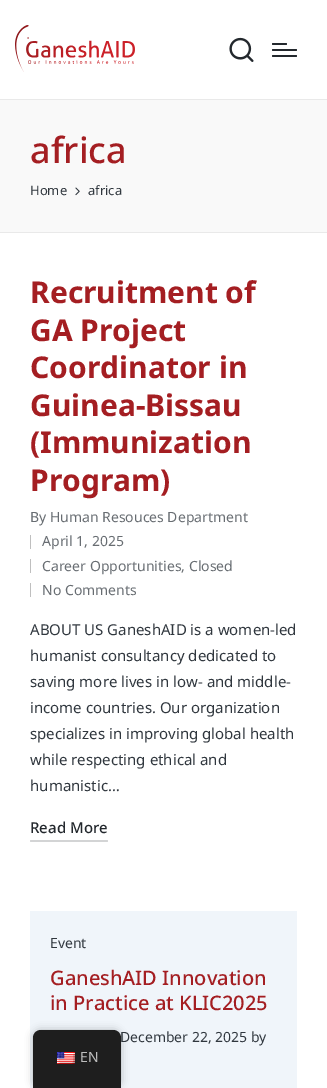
%!PS-Adobe-3.0
%%BoundingBox: 0 0 327 1088
%%LanguageLevel: 3
%%Pages: 1
%%EndComments
%%BeginProlog
/setink { dup -16 bitshift 255 div exch dup -8 bitshift 255 and 255 div exch 255 and 255 div setrgbcolor } def
/usefont { [ exch dup neg 0 0 3 -1 roll 0 0 ] selectfont } def
/setalpha { dup .setfillconstantalpha .setstrokeconstantalpha } def
/rrect { 5 dict begin { /r /h /w /y /x } { exch def } forall
  x r add y moveto x w add y 2 copy h add r arct x w add y h add x 1 index r arct
  x y h add x y r arct x y 2 copy exch w add exch r arct closepath end } def
/softshadow { 12 dict begin { /a /b /q /h /w /y /x } { exch def } forall gsave /was 0 def
  9 -2 -9 { dup b mul 4 div /e exch def 1 sub .425 mul 2.718 exch exp 1 add a .99 .min exch div /now exch def
    1 1 now sub 1 was sub div sub setalpha /was now def
    w h .min e 2 mul add 0 gt { x e sub y e sub w e 2 mul add h e 2 mul add
      q e add b .6 mul add w h .min 2 div e add .min 0 .max rrect fill } if } for grestore end } def
/drawimage { 5 dict begin { /h /w /y /x /name } { exch def } forall
  gsave x y translate w h scale
  w h 8 [w 0 0 h 0 0] name (r) file false 3 colorimage grestore end } def
%%EndProlog
%%BeginSetup
<< /PageSize [327 1088] /PageUsesTransparency true >> setpagedevice
%%EndSetup
%%Page: 1 1
0 .pushpdf14devicefilter
0 1088 translate 1 -1 scale
4 setmiterlimit
16#FFFFFF setink
0 0 327 1088 rectfill
16#E9E9E9 setink
0 99 327 1 rectfill
(img1.raw) 15 25 120 47 drawimage
(img2.raw) 229 37 25 25 drawimage
16#23282D setink
272 49 25 2 1 rrect fill
272 43 15 2 1 rrect fill
272 55 25 2 1 rrect fill
16#F9F9F9 setink
0 100 327 132 rectfill
16#E9E9E9 setink
0 232 327 1 rectfill
/NotoSans-Medium 36 usefont
16#A41E22 setink
30 163 moveto (africa) show
/NotoSans-Regular 13 usefont
16#30373E setink
30 195 moveto (Home) show
(img3.raw) 75 187 5 9 drawimage
88 195 moveto (africa) show
/NotoSans-Bold 30 usefont
16#A41E22 setink
[
    [(Recruitment of) 30 303]
    [(GA Project) 30 341]
    [(Coordinator in) 30 378]
    [(Guinea-Bissau) 30 416]
    [(\(Immunization) 30 453]
    [(Program\)) 30 491]
] { aload pop moveto show } forall
/NotoSans-Regular 14 usefont
16#686D72 setink
30 522 moveto (By Human Resouces Department) show
16#BFBFBF setink
30 535 1 14 rectfill
16#686D72 setink
42 546 moveto (April 1, 2025) show
16#BFBFBF setink
30 559 1 14 rectfill
16#686D72 setink
42 571 moveto (Career Opportunities, Closed) show
16#BFBFBF setink
30 583 1 14 rectfill
16#686D72 setink
42 595 moveto (No Comments) show
/NotoSans-Regular 15 usefont
16#30373E setink
[
    [(ABOUT US GaneshAID is a women-led) 30 635]
    [(humanist consultancy dedicated to) 30 661]
    [(saving more lives in low- and middle-) 30 687]
    [(income countries. Our organization) 30 713]
    [(specializes in improving global health) 30 739]
    [(while respecting ethical and) 30 765]
    [(humanistic…) 30 791]
] { aload pop moveto show } forall
/NotoSans-Medium 15 usefont
16#23282D setink
30 833 moveto (Read More) show
16#D3D4D5 setink
30 840 78 2 1 rrect fill
16#F0F5FA setink
30 911 267 177 rectfill
/NotoSans-Regular 14 usefont
16#30373E setink
50 948 moveto (Event) show
/NotoSans-Medium 20 usefont
16#A41E22 setink
50 985 moveto (GaneshAID Innovation) show
50 1010 moveto (in Practice at KLIC2025) show
/NotoSans-Regular 14 usefont
16#30373E setink
120 1042 moveto (December 22, 2025 by) show
16#000000 setink
33 1030 88 58 8 4 0.25 softshadow
16#1E1E1E setink
41 1030 moveto 113 1030 lineto 117.5 1030 121 1033.5 121 1038 curveto 121 1088 lineto 33 1088 lineto 33 1038 lineto 33 1033.5 36.5 1030 41 1030 curveto closepath fill
(img4.raw) 57 1052 18 12 drawimage
16#BDBDBD setink
80 1062 moveto (EN) show
.poppdf14devicefilter showpage
%%EOF
